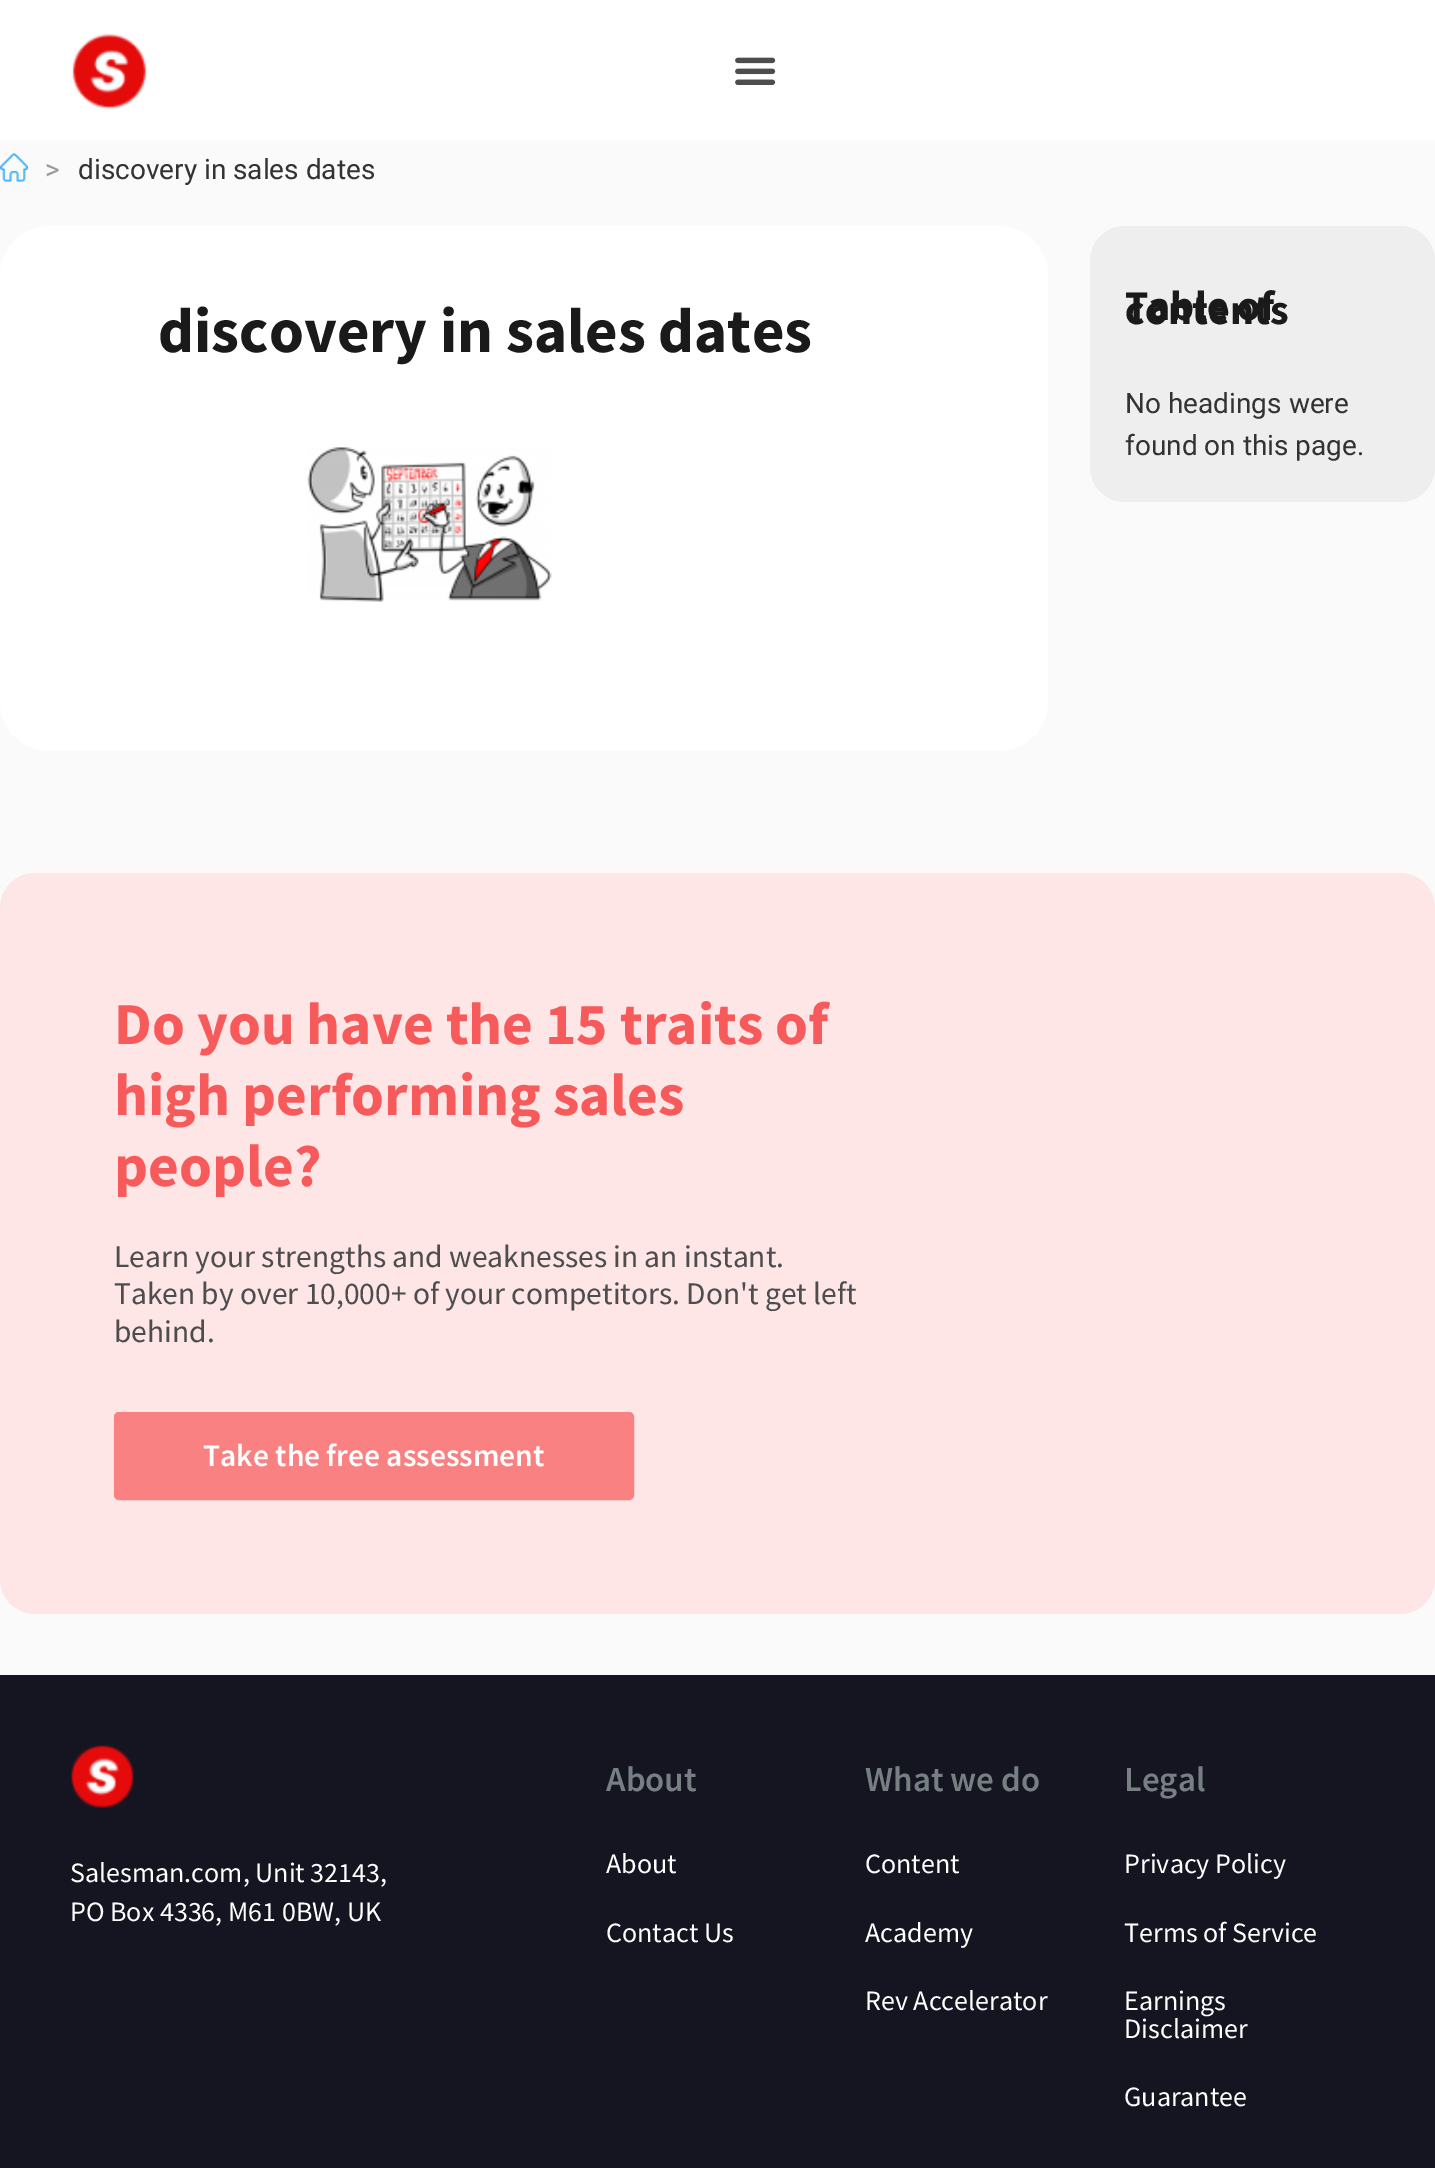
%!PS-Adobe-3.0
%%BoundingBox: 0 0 1435 2168
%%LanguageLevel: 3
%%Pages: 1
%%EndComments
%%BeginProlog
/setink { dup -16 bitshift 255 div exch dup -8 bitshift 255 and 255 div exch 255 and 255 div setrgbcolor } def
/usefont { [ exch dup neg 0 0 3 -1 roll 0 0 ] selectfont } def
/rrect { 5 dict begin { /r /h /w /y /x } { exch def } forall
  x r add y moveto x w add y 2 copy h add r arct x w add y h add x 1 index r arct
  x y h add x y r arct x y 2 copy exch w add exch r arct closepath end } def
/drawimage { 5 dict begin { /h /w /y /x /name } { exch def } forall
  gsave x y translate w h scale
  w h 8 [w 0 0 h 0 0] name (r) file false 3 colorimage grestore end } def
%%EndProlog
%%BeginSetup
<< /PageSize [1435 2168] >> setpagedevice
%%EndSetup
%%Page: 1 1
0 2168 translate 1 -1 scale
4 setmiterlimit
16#FAFAFA setink
0 0 1435 2168 rectfill
16#FFFFFF setink
0 0 1435 140 rectfill
(img1.raw) 71 33 76 76 drawimage
(img2.raw) 735 57 41 28 drawimage
(img3.raw) 0 153 28 29 drawimage
/Roboto-Regular 28 usefont
16#999999 setink
45 179 moveto (>) show
16#333333 setink
78 179 moveto (discovery in sales dates) show
16#FFFFFF setink
0 226 1048 525 49 rrect fill
/SourceSansPro-Bold 63 usefont
16#1A1A1A setink
158 352 moveto (discovery in sales dates) show
(img4.raw) 307 447 245 155 drawimage
16#EEEEEE setink
1090 226 345 276 35 rrect fill
/SourceSansPro-Bold 42 usefont
16#1A1A1A setink
1125 320 moveto (Table of) show
1125 324 moveto (contents) show
/Roboto-Regular 28 usefont
16#333333 setink
1125 413 moveto (No headings were) show
1125 455 moveto (found on this page.) show
16#FEE6E6 setink
0 873 1435 741 35 rrect fill
/SourceSansPro-Bold 59.5 usefont
16#F75A5A setink
[
    [(Do you have the 15 traits of) 114 1044]
    [(high performing sales) 114 1115]
    [(people?) 114 1186]
] { aload pop moveto show } forall
/SourceSansPro-Regular 31.5 usefont
16#4D4D4D setink
[
    [(Learn your strengths and weaknesses in an instant.) 114 1267]
    [(Taken by over 10,000+ of your competitors. Don't get left) 114 1304]
    [(behind.) 114 1342]
] { aload pop moveto show } forall
16#F98181 setink
115 1413 518 86 4 rrect gsave fill grestore
2 setlinewidth
stroke
/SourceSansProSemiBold-SemiBold 31.5 usefont
16#FFFFFF setink
203 1466 moveto (Take the free assessment) show
16#151522 setink
0 1675 1435 493 rectfill
(img5.raw) 71 1745 63 63 drawimage
/SourceSansPro-Regular 28 usefont
16#FFFFFF setink
70 1882 moveto (Salesman.com, Unit 32143,) show
70 1921 moveto (PO Box 4336, M61 0BW, UK) show
/SourceSansProSemiBold-SemiBold 35 usefont
16#777F83 setink
606 1791 moveto (About) show
/SourceSansPro-Regular 28 usefont
16#FFFFFF setink
606 1873 moveto (About) show
606 1942 moveto (Contact Us) show
/SourceSansProSemiBold-SemiBold 35 usefont
16#777F83 setink
865 1791 moveto (What we do) show
/SourceSansPro-Regular 28 usefont
16#FFFFFF setink
[
    [(Content) 865 1873]
    [(Academy) 865 1942]
    [(Rev Accelerator) 865 2010]
] { aload pop moveto show } forall
/SourceSansProSemiBold-SemiBold 35 usefont
16#777F83 setink
1124 1791 moveto (Legal) show
/SourceSansPro-Regular 28 usefont
16#FFFFFF setink
[
    [(Privacy Policy) 1124 1873]
    [(Terms of Service) 1124 1942]
    [(Earnings) 1124 2010]
    [(Disclaimer) 1124 2038]
    [(Guarantee) 1124 2106]
] { aload pop moveto show } forall
showpage
%%EOF
